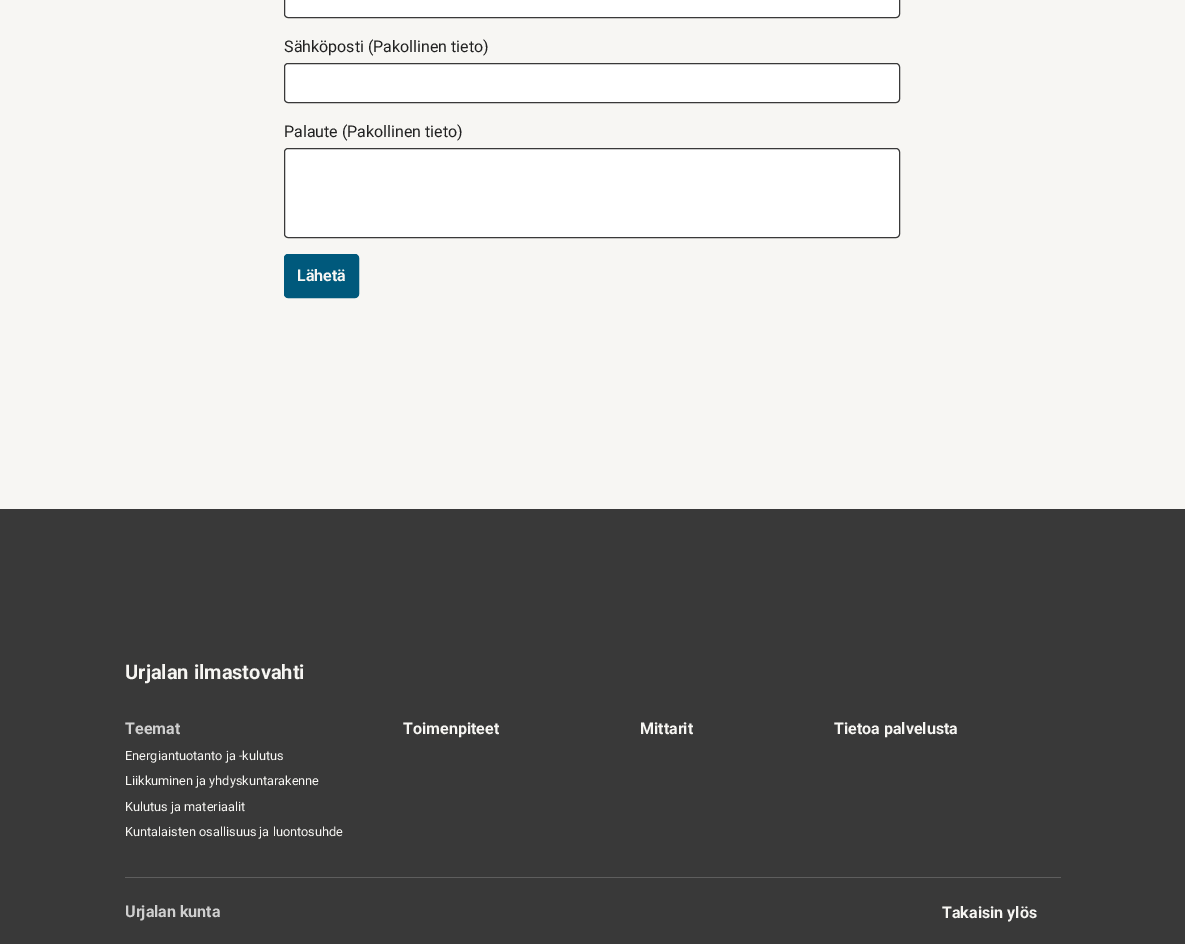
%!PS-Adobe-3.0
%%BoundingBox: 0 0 1185 944
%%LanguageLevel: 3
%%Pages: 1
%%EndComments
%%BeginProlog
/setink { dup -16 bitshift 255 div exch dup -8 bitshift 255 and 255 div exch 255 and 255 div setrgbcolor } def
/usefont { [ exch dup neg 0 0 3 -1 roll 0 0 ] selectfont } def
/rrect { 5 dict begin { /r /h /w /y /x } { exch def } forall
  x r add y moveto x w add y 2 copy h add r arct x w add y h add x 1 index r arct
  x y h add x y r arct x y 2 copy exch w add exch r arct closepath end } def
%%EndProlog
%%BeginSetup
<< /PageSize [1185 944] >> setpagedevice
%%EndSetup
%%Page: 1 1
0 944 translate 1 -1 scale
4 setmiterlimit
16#F7F6F3 setink
0 0 1185 944 rectfill
16#FFFFFF setink
285 -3 614 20 3 rrect fill
16#393939 setink
284.5 -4.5 615 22 3.5 rrect stroke
/Roboto-Regular 16 usefont
16#222222 setink
284 52 moveto (Sähköposti \(Pakollinen tieto\)) show
16#FFFFFF setink
284.5 63.5 615 39 3.5 rrect gsave fill grestore
16#393939 setink
stroke
16#222222 setink
284 137 moveto (Palaute \(Pakollinen tieto\)) show
16#FFFFFF setink
284.5 148.5 615 89 3.5 rrect gsave fill grestore
16#393939 setink
stroke
16#00597C setink
284.5 254.5 74 43 3.5 rrect gsave fill grestore
stroke
/Roboto-Bold 16 usefont
16#F7F6F3 setink
297 281 moveto (Lähetä) show
16#393939 setink
0 509 1185 435 rectfill
/Roboto-Bold 20 usefont
16#F7F6F3 setink
125 679 moveto (Urjalan ilmastovahti) show
/Roboto-Bold 16 usefont
16#CFCFCF setink
125 734 moveto (Teemat) show
/Roboto-Regular 12.75 usefont
16#F7F6F3 setink
[
    [(Energiantuotanto ja -kulutus) 125 760]
    [(Liikkuminen ja yhdyskuntarakenne) 125 785]
    [(Kulutus ja materiaalit) 125 811]
    [(Kuntalaisten osallisuus ja luontosuhde) 125 836]
] { aload pop moveto show } forall
/Roboto-Bold 16 usefont
[
    [(Toimenpiteet) 403 734]
    [(Mittarit) 640 734]
    [(Tietoa palvelusta) 834 734]
] { aload pop moveto show } forall
16#5E5E5E setink
125 877 936 1 rectfill
16#CFCFCF setink
125 917 moveto (Urjalan kunta) show
16#F7F6F3 setink
942 918 moveto (Takaisin ylös) show
showpage
%%EOF
